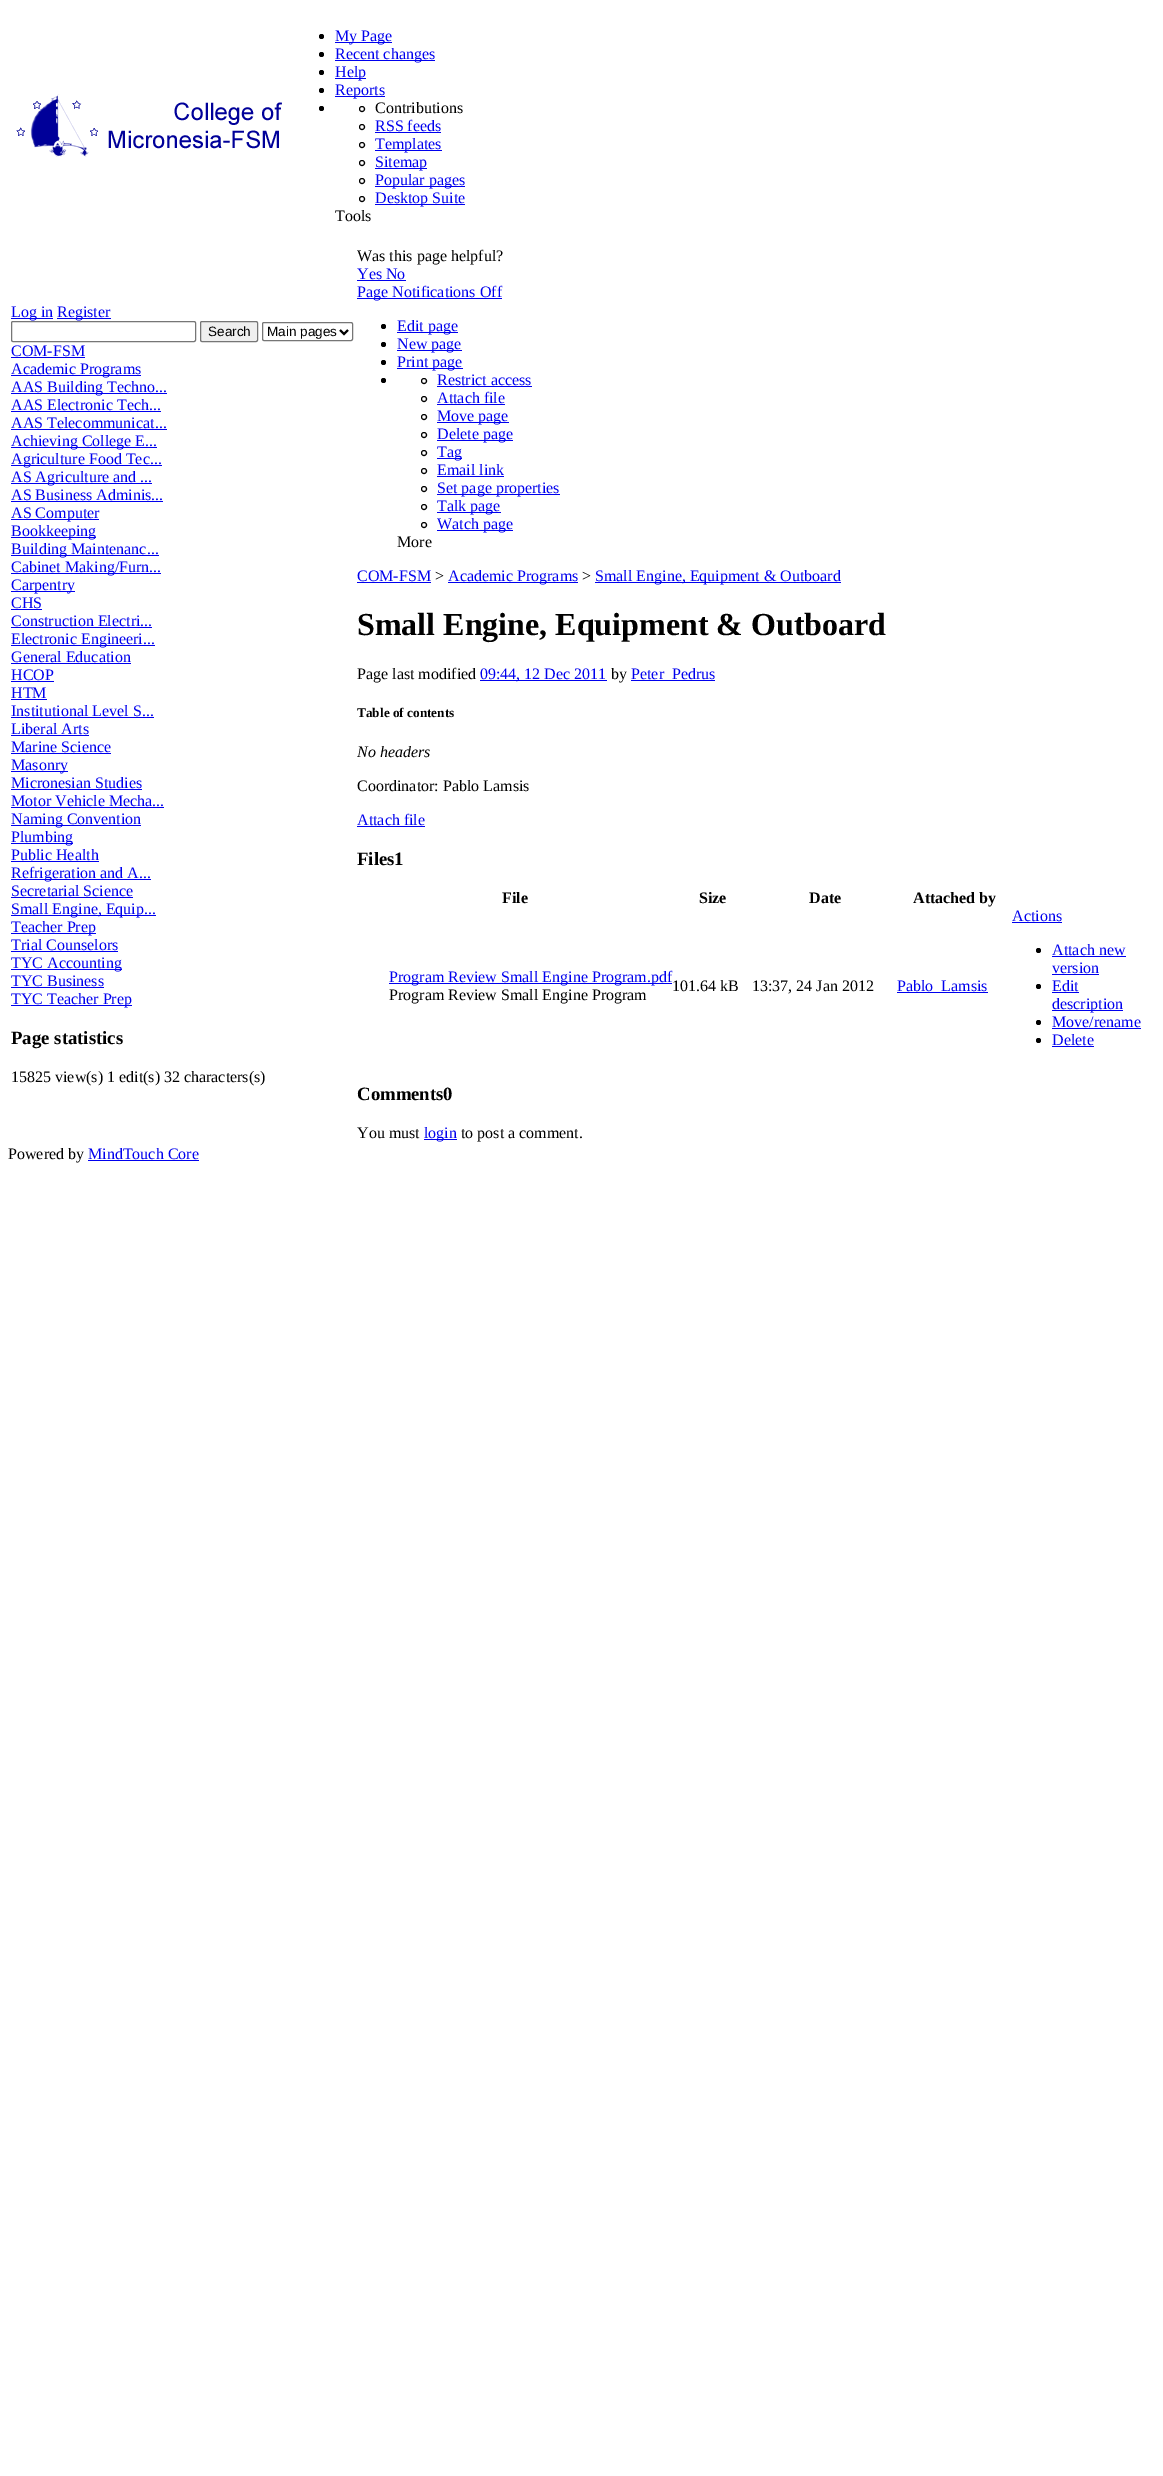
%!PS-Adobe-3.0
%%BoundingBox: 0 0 1163 2476
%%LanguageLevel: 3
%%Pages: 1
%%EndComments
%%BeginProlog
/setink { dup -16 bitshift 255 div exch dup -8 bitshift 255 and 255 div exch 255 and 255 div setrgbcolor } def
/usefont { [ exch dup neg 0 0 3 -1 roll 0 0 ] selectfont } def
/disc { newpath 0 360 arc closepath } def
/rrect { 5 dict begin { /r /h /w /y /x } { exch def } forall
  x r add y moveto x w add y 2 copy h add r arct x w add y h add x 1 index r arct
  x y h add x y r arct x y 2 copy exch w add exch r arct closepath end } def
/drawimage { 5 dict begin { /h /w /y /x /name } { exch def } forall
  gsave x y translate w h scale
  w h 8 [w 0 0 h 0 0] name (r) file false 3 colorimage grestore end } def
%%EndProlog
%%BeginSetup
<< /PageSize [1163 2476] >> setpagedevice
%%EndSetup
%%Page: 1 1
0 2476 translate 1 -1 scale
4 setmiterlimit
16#FFFFFF setink
0 0 1163 2476 rectfill
(img1.raw) 16 94 266 63 drawimage
16#000000 setink
321.5 36.5 2.5 disc fill
16#0000EE setink
335 42 57 1 rectfill
/LiberationSerif-Regular 16 usefont
335 41 moveto (My Page) show
16#000000 setink
321.5 54.5 2.5 disc fill
16#0000EE setink
335 60 100 1 rectfill
335 59 moveto (Recent changes) show
16#000000 setink
321.5 72.5 2.5 disc fill
16#0000EE setink
335 78 31 1 rectfill
335 77 moveto (Help) show
16#000000 setink
321.5 90.5 2.5 disc fill
16#0000EE setink
335 96 50 1 rectfill
335 95 moveto (Reports) show
16#000000 setink
321.5 108.5 2.5 disc fill
362 109 2.5 disc stroke
375 113 moveto (Contributions) show
362 127 2.5 disc stroke
16#0000EE setink
375 131 moveto (RSS feeds) show
375 132 66 1 rectfill
16#000000 setink
362 145 2.5 disc stroke
16#0000EE setink
375 150 67 1 rectfill
375 149 moveto (Templates) show
16#000000 setink
362 163 2.5 disc stroke
16#0000EE setink
375 168 52 1 rectfill
375 167 moveto (Sitemap) show
16#000000 setink
362 181 2.5 disc stroke
16#0000EE setink
375 186 90 1 rectfill
375 185 moveto (Popular pages) show
16#000000 setink
362 199 2.5 disc stroke
16#0000EE setink
375 204 90 1 rectfill
375 203 moveto (Desktop Suite) show
16#000000 setink
335 221 moveto (Tools) show
16#0000EE setink
11 318 42 1 rectfill
11 317 moveto (Log in) show
57 318 54 1 rectfill
57 317 moveto (Register) show
16#767676 setink
11.5 321.5 184 20 1.5 rrect stroke
16#EFEFEF setink
200.5 321.5 57 20 1.5 rrect gsave fill grestore
16#767676 setink
stroke
/LiberationSans-Regular 13.5 usefont
16#000000 setink
208 336 moveto (Search) show
16#767676 setink
262.5 322.5 90 18 1.5 rrect stroke
16#000000 setink
2 setlinewidth
340 330 moveto 344 334 lineto 348 330 lineto stroke
267 336 moveto (Main pages) show
/LiberationSerif-Regular 16 usefont
16#0000EE setink
11 356 moveto (COM-FSM) show
11 357 74 1 rectfill
11 375 130 1 rectfill
11 374 moveto (Academic Programs) show
11 393 156 1 rectfill
11 392 moveto (AAS Building Techno...) show
11 410 moveto (AAS Electronic Tech...) show
11 411 150 1 rectfill
11 428 moveto (AAS Telecommunicat...) show
11 429 156 1 rectfill
11 447 146 1 rectfill
11 446 moveto (Achieving College E...) show
11 465 151 1 rectfill
11 464 moveto (Agriculture Food Tec...) show
11 483 141 1 rectfill
11 482 moveto (AS Agriculture and ...) show
11 500 moveto (AS Business Adminis...) show
11 501 152 1 rectfill
11 519 88 1 rectfill
11 518 moveto (AS Computer) show
11 537 85 1 rectfill
11 536 moveto (Bookkeeping) show
11 555 148 1 rectfill
11 554 moveto (Building Maintenanc...) show
11 573 150 1 rectfill
11 572 moveto (Cabinet Making/Furn...) show
11 591 64 1 rectfill
11 590 moveto (Carpentry) show
11 608 moveto (CHS) show
11 609 31 1 rectfill
11 626 moveto (Construction Electri...) show
11 627 141 1 rectfill
11 645 144 1 rectfill
11 644 moveto (Electronic Engineeri...) show
11 662 moveto (General Education) show
11 663 120 1 rectfill
11 680 moveto (HCOP) show
11 681 43 1 rectfill
11 698 moveto (HTM) show
11 699 36 1 rectfill
11 716 moveto (Institutional Level S...) show
11 717 143 1 rectfill
11 734 moveto (Liberal Arts) show
11 735 78 1 rectfill
11 752 moveto (Marine Science) show
11 753 100 1 rectfill
11 771 57 1 rectfill
11 770 moveto (Masonry) show
11 788 moveto (Micronesian Studies) show
11 789 131 1 rectfill
11 806 moveto (Motor Vehicle Mecha...) show
11 807 153 1 rectfill
11 825 130 1 rectfill
11 824 moveto (Naming Convention) show
11 843 62 1 rectfill
11 842 moveto (Plumbing) show
11 860 moveto (Public Health) show
11 861 88 1 rectfill
11 879 140 1 rectfill
11 878 moveto (Refrigeration and A...) show
11 896 moveto (Secretarial Science) show
11 897 122 1 rectfill
11 915 145 1 rectfill
11 914 moveto (Small Engine, Equip...) show
11 933 85 1 rectfill
11 932 moveto (Teacher Prep) show
11 950 moveto (Trial Counselors) show
11 951 107 1 rectfill
11 969 111 1 rectfill
11 968 moveto (TYC Accounting) show
11 986 moveto (TYC Business) show
11 987 93 1 rectfill
11 1005 121 1 rectfill
11 1004 moveto (TYC Teacher Prep) show
/LiberationSerif-Bold 18.75 usefont
16#000000 setink
11 1044 moveto (Page statistics) show
/LiberationSerif-Regular 16 usefont
11 1082 moveto (15825 view\(s\) 1 edit\(s\) 32 characters\(s\)) show
357 261 moveto (Was this page helpful?) show
16#0000EE setink
357 279 moveto (Yes No) show
357 280 49 1 rectfill
357 298 145 1 rectfill
357 297 moveto (Page Notifications Off) show
16#000000 setink
383.5 326.5 2.5 disc fill
16#0000EE setink
397 332 61 1 rectfill
397 331 moveto (Edit page) show
16#000000 setink
383.5 344.5 2.5 disc fill
16#0000EE setink
397 350 65 1 rectfill
397 349 moveto (New page) show
16#000000 setink
383.5 362.5 2.5 disc fill
16#0000EE setink
397 368 66 1 rectfill
397 367 moveto (Print page) show
16#000000 setink
383.5 380.5 2.5 disc fill
1 setlinewidth
424 381 2.5 disc stroke
16#0000EE setink
437 385 moveto (Restrict access) show
437 386 95 1 rectfill
16#000000 setink
424 399 2.5 disc stroke
16#0000EE setink
437 403 moveto (Attach file) show
437 404 68 1 rectfill
16#000000 setink
424 417 2.5 disc stroke
16#0000EE setink
437 422 72 1 rectfill
437 421 moveto (Move page) show
16#000000 setink
424 435 2.5 disc stroke
16#0000EE setink
437 440 76 1 rectfill
437 439 moveto (Delete page) show
16#000000 setink
424 453 2.5 disc stroke
16#0000EE setink
437 458 25 1 rectfill
437 457 moveto (Tag) show
16#000000 setink
424 471 2.5 disc stroke
16#0000EE setink
437 475 moveto (Email link) show
437 476 67 1 rectfill
16#000000 setink
424 489 2.5 disc stroke
16#0000EE setink
437 494 123 1 rectfill
437 493 moveto (Set page properties) show
16#000000 setink
424 507 2.5 disc stroke
16#0000EE setink
437 512 64 1 rectfill
437 511 moveto (Talk page) show
16#000000 setink
424 525 2.5 disc stroke
16#0000EE setink
437 530 76 1 rectfill
437 529 moveto (Watch page) show
16#000000 setink
397 547 moveto (More) show
16#0000EE setink
357 581 moveto (COM-FSM) show
357 582 74 1 rectfill
16#000000 setink
435 581 moveto (>) show
16#0000EE setink
448 582 130 1 rectfill
448 581 moveto (Academic Programs) show
16#000000 setink
582 581 moveto (>) show
16#0000EE setink
595 582 246 1 rectfill
595 581 moveto (Small Engine, Equipment & Outboard) show
/LiberationSerif-Bold 32 usefont
16#000000 setink
357 635 moveto (Small Engine, Equipment & Outboard) show
/LiberationSerif-Regular 16 usefont
357 679 moveto (Page last modified) show
16#0000EE setink
480 680 127 1 rectfill
480 679 moveto (09:44, 12 Dec 2011) show
16#000000 setink
611 679 moveto (by) show
16#0000EE setink
631 680 84 1 rectfill
631 679 moveto (Peter_Pedrus) show
/LiberationSerif-Bold 13.25 usefont
16#000000 setink
357 717 moveto (Table of contents) show
/LiberationSerif-Italic 16 usefont
357 757 moveto (No headers) show
/LiberationSerif-Regular 16 usefont
357 791 moveto (Coordinator: Pablo Lamsis) show
16#0000EE setink
357 825 moveto (Attach file) show
357 826 68 1 rectfill
/LiberationSerif-Bold 18.75 usefont
16#000000 setink
357 865 moveto (Files1) show
/LiberationSerif-Bold 16 usefont
[
    [(File) 502 903]
    [(Size) 699 903]
    [(Date) 809 903]
    [(Attached by) 913 903]
] { aload pop moveto show } forall
16#0000EE setink
389 983 283 1 rectfill
/LiberationSerif-Regular 16 usefont
389 982 moveto (Program Review Small Engine Program.pdf) show
16#000000 setink
[
    [(Program Review Small Engine Program) 389 1000]
    [(101.64 kB) 672 991]
    [(13:37, 24 Jan 2012) 752 991]
] { aload pop moveto show } forall
16#0000EE setink
897 992 91 1 rectfill
897 991 moveto (Pablo_Lamsis) show
1012 921 moveto (Actions) show
1012 922 50 1 rectfill
16#000000 setink
1038.5 950.5 2.5 disc fill
16#0000EE setink
1052 955 moveto (Attach new) show
1052 956 74 1 rectfill
1052 973 moveto (version) show
1052 974 47 1 rectfill
16#000000 setink
1038.5 986.5 2.5 disc fill
16#0000EE setink
1052 991 moveto (Edit) show
1052 992 27 1 rectfill
1052 1010 71 1 rectfill
1052 1009 moveto (description) show
16#000000 setink
1038.5 1022.5 2.5 disc fill
16#0000EE setink
1052 1027 moveto (Move/rename) show
1052 1028 89 1 rectfill
16#000000 setink
1038.5 1040.5 2.5 disc fill
16#0000EE setink
1052 1045 moveto (Delete) show
1052 1046 42 1 rectfill
/LiberationSerif-Bold 18.75 usefont
16#000000 setink
357 1100 moveto (Comments0) show
/LiberationSerif-Regular 16 usefont
357 1138 moveto (You must) show
16#0000EE setink
424 1139 33 1 rectfill
424 1138 moveto (login) show
16#000000 setink
461 1138 moveto (to post a comment.) show
8 1159 moveto (Powered by) show
16#0000EE setink
88 1159 moveto (MindTouch Core) show
88 1160 111 1 rectfill
showpage
%%EOF
